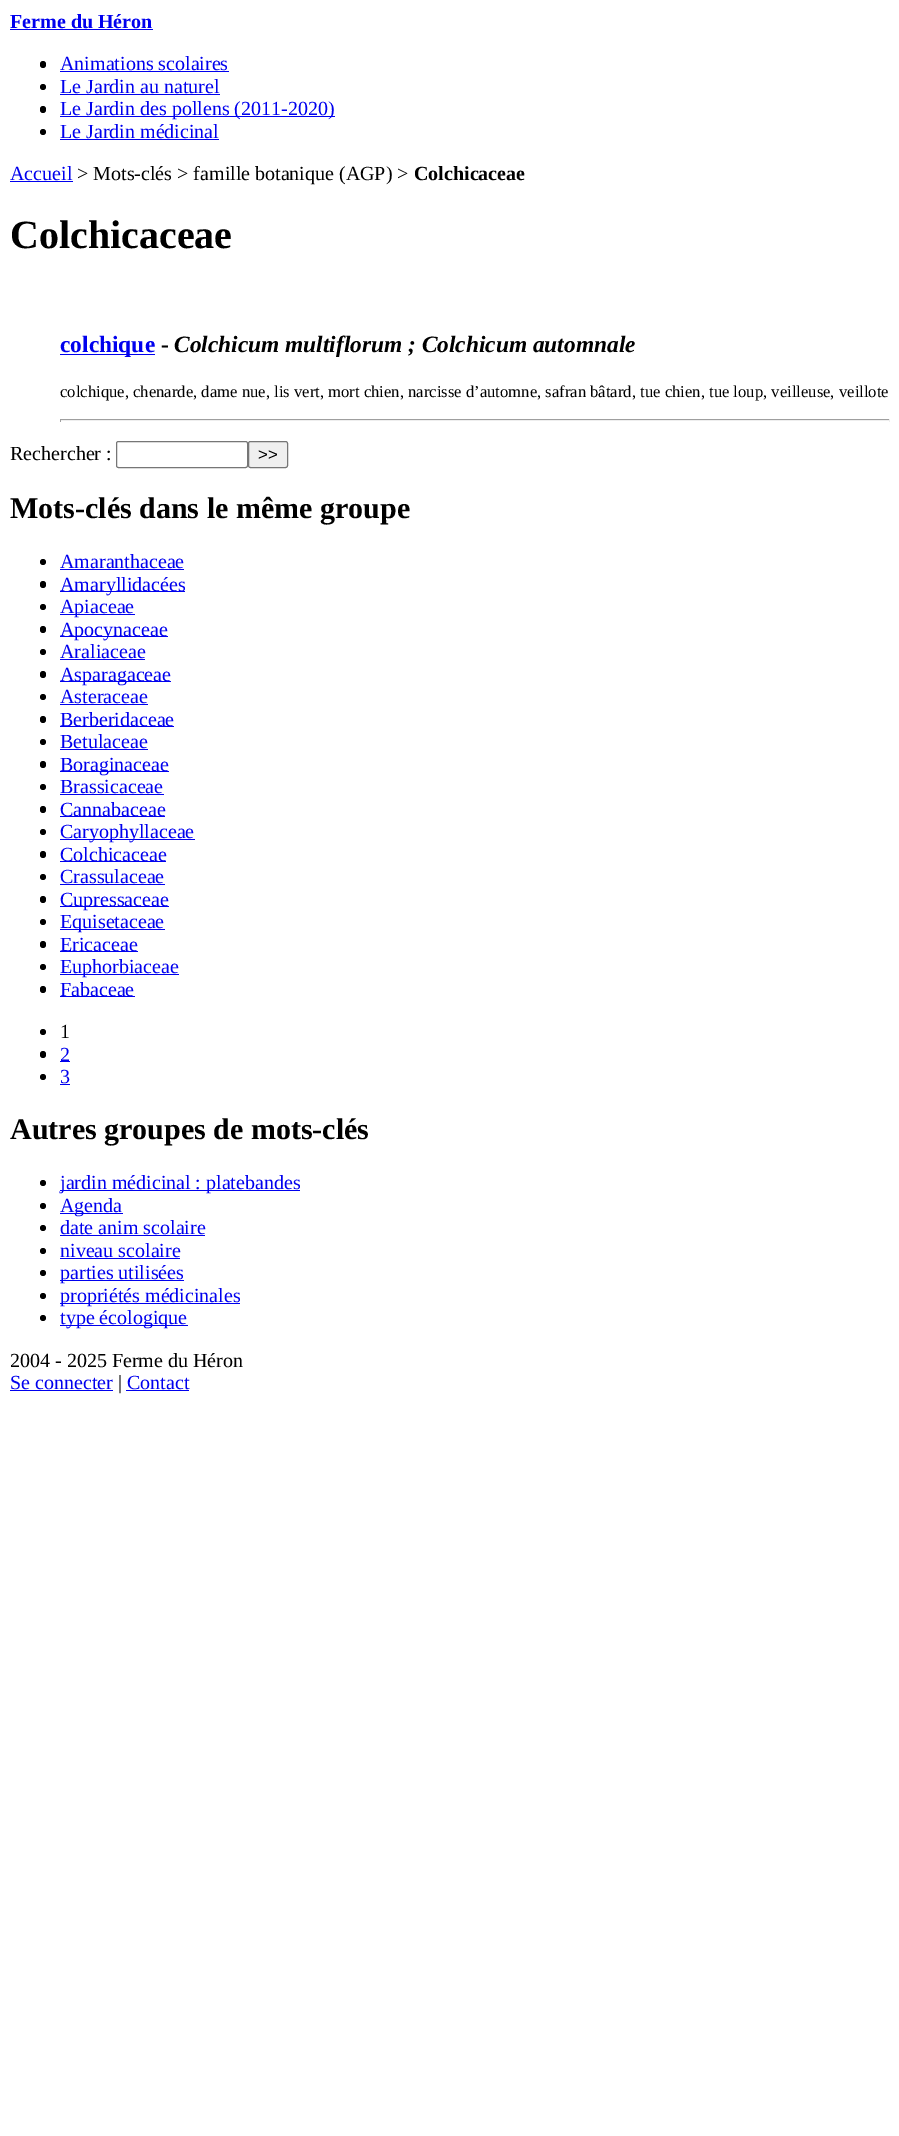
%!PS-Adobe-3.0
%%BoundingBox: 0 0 899 2136
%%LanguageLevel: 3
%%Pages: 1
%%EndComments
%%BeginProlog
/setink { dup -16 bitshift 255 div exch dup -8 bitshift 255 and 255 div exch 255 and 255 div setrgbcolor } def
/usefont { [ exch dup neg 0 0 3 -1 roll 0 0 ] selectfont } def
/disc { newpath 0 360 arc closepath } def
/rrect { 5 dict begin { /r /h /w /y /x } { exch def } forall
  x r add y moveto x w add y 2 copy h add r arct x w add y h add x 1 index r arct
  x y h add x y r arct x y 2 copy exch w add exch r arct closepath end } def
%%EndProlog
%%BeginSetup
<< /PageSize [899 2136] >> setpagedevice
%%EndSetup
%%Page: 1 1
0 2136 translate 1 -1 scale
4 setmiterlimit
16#FFFFFF setink
0 0 899 2136 rectfill
/LiberationSerif-Bold 20 usefont
16#0000EE setink
10 28 moveto (Ferme du Héron) show
10 29 143 1 rectfill
16#000000 setink
40 61 6 7 3 rrect fill
/LiberationSerif-Regular 20 usefont
16#0000EE setink
60 70 moveto (Animations scolaires) show
60 71 169 1 rectfill
16#000000 setink
43 87 3 disc fill
16#0000EE setink
60 93 moveto (Le Jardin au naturel) show
60 94 160 1 rectfill
16#000000 setink
40 106 6 7 3 rrect fill
16#0000EE setink
60 116 275 1 rectfill
60 115 moveto (Le Jardin des pollens \(2011-2020\)) show
16#000000 setink
43 132 3 disc fill
16#0000EE setink
60 138 moveto (Le Jardin médicinal) show
60 139 159 1 rectfill
10 180 moveto (Accueil) show
10 181 63 1 rectfill
16#000000 setink
77 180 moveto (> Mots-clés > famille botanique \(AGP\) >) show
/LiberationSerif-Bold 20 usefont
414 180 moveto (Colchicaceae) show
/LiberationSerif-Bold 40 usefont
10 248 moveto (Colchicaceae) show
16#0000EE setink
60 354 95 1 rectfill
/LiberationSerif-Bold 23.4 usefont
60 352 moveto (colchique) show
16#000000 setink
161 352 moveto (-) show
/LiberationSerif-BoldItalic 23.4 usefont
174 352 moveto (Colchicum multiflorum ; Colchicum automnale) show
/LiberationSerif-Regular 16.65 usefont
60 397 moveto (colchique, chenarde, dame nue, lis vert, mort chien, narcisse d’automne, safran bâtard, tue chien, tue loup, veilleuse, veillote) show
[
    [60 419 830 1 16#9F9F9F]
    [889 419 1 3 16#EEEEEE]
    [60 420 830 1 16#EEEEEE]
    [60 419 1 3 16#9F9F9F]
] { aload pop setink rectfill } forall
/LiberationSerif-Regular 20 usefont
16#000000 setink
10 460 moveto (Rechercher :) show
16#767676 setink
116.5 441.5 131 26 2 rrect stroke
16#EFEFEF setink
248.5 441.5 39 26 2 rrect gsave fill grestore
16#767676 setink
stroke
/LiberationSans-Regular 16.65 usefont
16#000000 setink
258 460 moveto (>>) show
/LiberationSerif-Bold 30 usefont
10 518 moveto (Mots-clés dans le même groupe) show
43 562 3 disc fill
/LiberationSerif-Regular 20 usefont
16#0000EE setink
60 568 moveto (Amaranthaceae) show
60 569 124 1 rectfill
16#000000 setink
40 581 6 7 3 rrect fill
16#0000EE setink
60 591 125 1 rectfill
60 591 moveto (Amaryllidacées) show
16#000000 setink
43 607 3 disc fill
16#0000EE setink
60 614 75 1 rectfill
60 613 moveto (Apiaceae) show
16#000000 setink
40 626 6 7 3 rrect fill
16#0000EE setink
60 636 108 1 rectfill
60 636 moveto (Apocynaceae) show
16#000000 setink
43 652 3 disc fill
16#0000EE setink
60 658 moveto (Araliaceae) show
60 659 85 1 rectfill
16#000000 setink
40 671 6 7 3 rrect fill
16#0000EE setink
60 681 111 1 rectfill
60 681 moveto (Asparagaceae) show
16#000000 setink
43 697 3 disc fill
16#0000EE setink
60 703 moveto (Asteraceae) show
60 704 88 1 rectfill
16#000000 setink
40 716 6 7 3 rrect fill
16#0000EE setink
60 726 114 1 rectfill
60 726 moveto (Berberidaceae) show
16#000000 setink
43 742 3 disc fill
16#0000EE setink
60 748 moveto (Betulaceae) show
60 749 88 1 rectfill
16#000000 setink
40 761 6 7 3 rrect fill
16#0000EE setink
60 771 109 1 rectfill
60 771 moveto (Boraginaceae) show
16#000000 setink
43 787 3 disc fill
16#0000EE setink
60 793 moveto (Brassicaceae) show
60 794 104 1 rectfill
16#000000 setink
40 806 6 7 3 rrect fill
16#0000EE setink
60 816 105 1 rectfill
60 816 moveto (Cannabaceae) show
16#000000 setink
43 832 3 disc fill
16#0000EE setink
60 839 135 1 rectfill
60 838 moveto (Caryophyllaceae) show
16#000000 setink
40 851 6 7 3 rrect fill
16#0000EE setink
60 861 106 1 rectfill
60 861 moveto (Colchicaceae) show
16#000000 setink
43 877 3 disc fill
16#0000EE setink
60 883 moveto (Crassulaceae) show
60 884 105 1 rectfill
16#000000 setink
40 896 6 7 3 rrect fill
16#0000EE setink
60 906 109 1 rectfill
60 906 moveto (Cupressaceae) show
16#000000 setink
43 922 3 disc fill
16#0000EE setink
60 929 105 1 rectfill
60 928 moveto (Equisetaceae) show
16#000000 setink
40 941 6 7 3 rrect fill
16#0000EE setink
60 951 78 1 rectfill
60 951 moveto (Ericaceae) show
16#000000 setink
43 967 3 disc fill
16#0000EE setink
60 974 119 1 rectfill
60 973 moveto (Euphorbiaceae) show
16#000000 setink
40 986 6 7 3 rrect fill
16#0000EE setink
60 996 75 1 rectfill
60 996 moveto (Fabaceae) show
16#000000 setink
43 1032 3 disc fill
60 1038 moveto (1) show
40 1051 6 7 3 rrect fill
16#0000EE setink
60 1061 moveto (2) show
60 1061 10 1 rectfill
16#000000 setink
43 1077 3 disc fill
16#0000EE setink
60 1083 moveto (3) show
60 1084 10 1 rectfill
/LiberationSerif-Bold 30 usefont
16#000000 setink
10 1139 moveto (Autres groupes de mots-clés) show
43 1183 3 disc fill
16#0000EE setink
60 1190 240 1 rectfill
/LiberationSerif-Regular 20 usefont
60 1189 moveto (jardin médicinal : platebandes) show
16#000000 setink
43 1206 3 disc fill
16#0000EE setink
60 1213 63 1 rectfill
60 1212 moveto (Agenda) show
16#000000 setink
43 1228 3 disc fill
16#0000EE setink
60 1234 moveto (date anim scolaire) show
60 1235 145 1 rectfill
16#000000 setink
43 1251 3 disc fill
16#0000EE setink
60 1257 moveto (niveau scolaire) show
60 1258 120 1 rectfill
16#000000 setink
43 1273 3 disc fill
16#0000EE setink
60 1280 124 1 rectfill
60 1279 moveto (parties utilisées) show
16#000000 setink
43 1296 3 disc fill
16#0000EE setink
60 1303 180 1 rectfill
60 1302 moveto (propriétés médicinales) show
16#000000 setink
43 1318 3 disc fill
16#0000EE setink
60 1325 128 1 rectfill
60 1324 moveto (type écologique) show
16#000000 setink
10 1367 moveto (2004 - 2025 Ferme du Héron) show
16#0000EE setink
10 1389 moveto (Se connecter) show
10 1390 103 1 rectfill
16#000000 setink
118 1389 moveto (|) show
16#0000EE setink
127 1389 moveto (Contact) show
126 1390 63 1 rectfill
showpage
%%EOF
